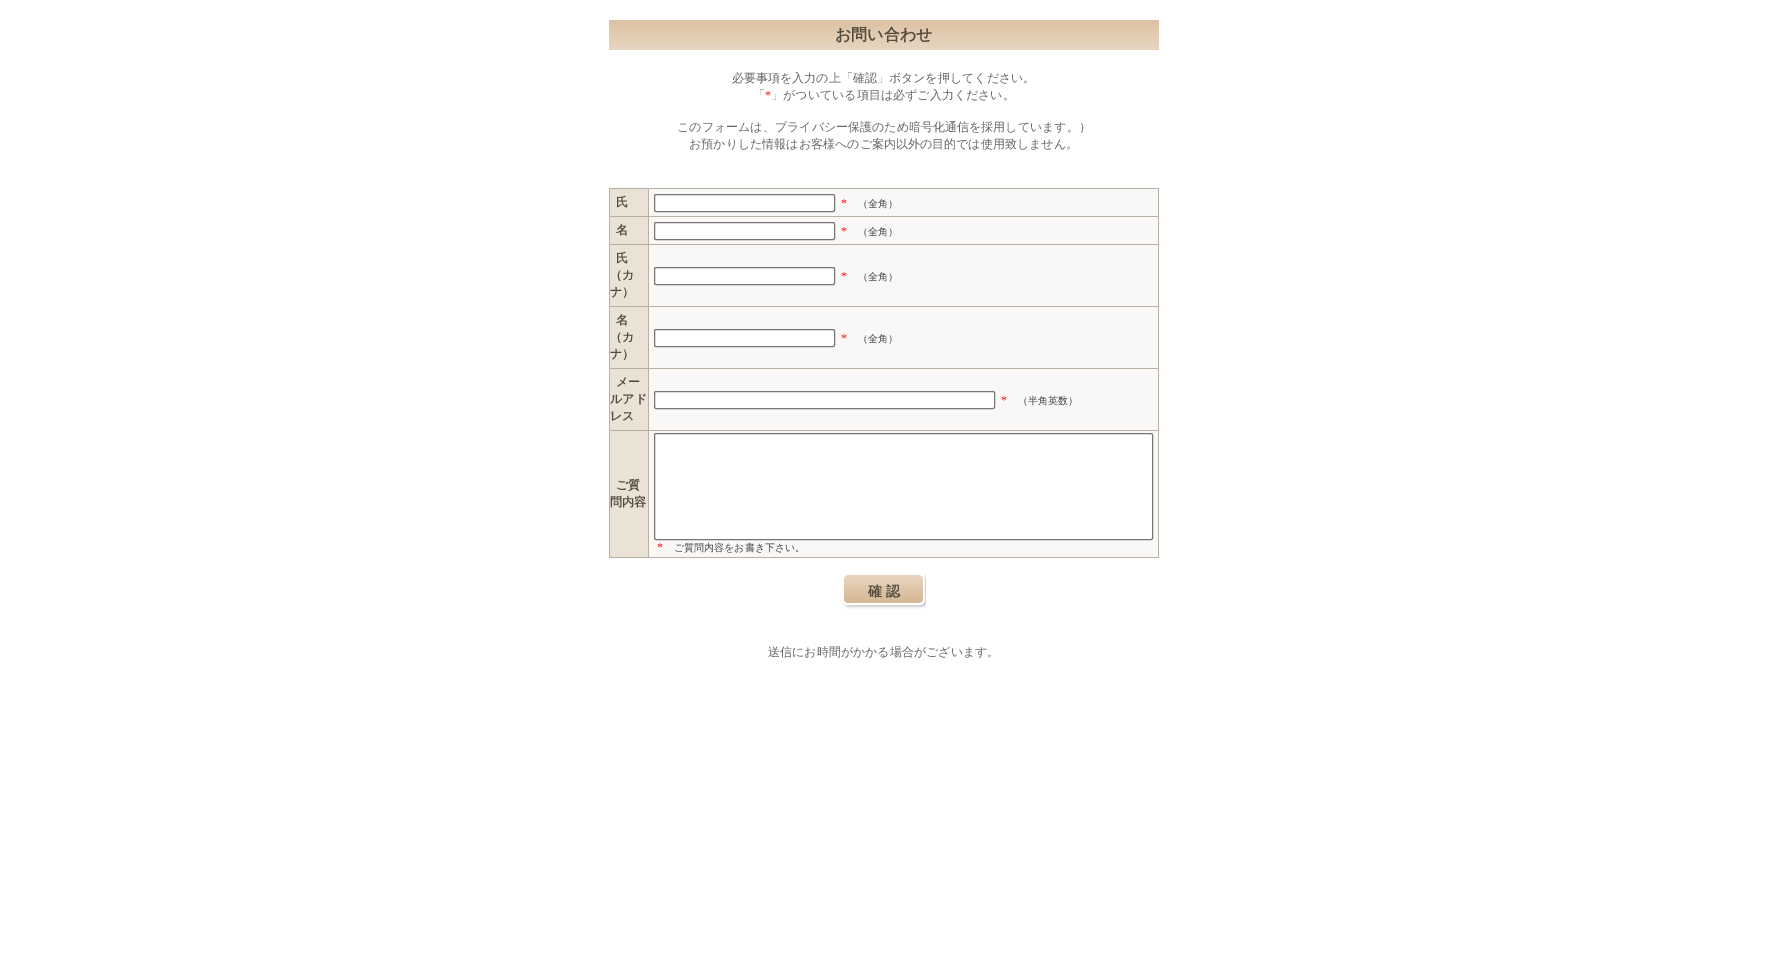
%!PS-Adobe-3.0
%%BoundingBox: 0 0 1767 959
%%LanguageLevel: 3
%%Pages: 1
%%EndComments
%%BeginProlog
/setink { dup -16 bitshift 255 div exch dup -8 bitshift 255 and 255 div exch 255 and 255 div setrgbcolor } def
/usefont { [ exch dup neg 0 0 3 -1 roll 0 0 ] selectfont } def
/rrect { 5 dict begin { /r /h /w /y /x } { exch def } forall
  x r add y moveto x w add y 2 copy h add r arct x w add y h add x 1 index r arct
  x y h add x y r arct x y 2 copy exch w add exch r arct closepath end } def
/drawimage { 5 dict begin { /h /w /y /x /name } { exch def } forall
  gsave x y translate w h scale
  w h 8 [w 0 0 h 0 0] name (r) file false 3 colorimage grestore end } def
%%EndProlog
%%BeginSetup
<< /PageSize [1767 959] >> setpagedevice
%%EndSetup
%%Page: 1 1
0 959 translate 1 -1 scale
4 setmiterlimit
16#FFFFFF setink
0 0 1767 959 rectfill
(img1.raw) 609 20 550 30 drawimage
/WenQuanYiZenHei-Bold 16 usefont
16#534A3E setink
835 40 moveto (お問い合わせ) show
/WenQuanYiZenHei-Medium 12 usefont
16#666666 setink
732 82 moveto (必要事項を入力の上「確認」ボタンを押してください。) show
753 99 moveto (「) show
/LiberationSerif-Regular 12 usefont
16#FF0000 setink
765 99 moveto (*) show
/WenQuanYiZenHei-Medium 12 usefont
16#666666 setink
[
    [(」がついている項目は必ずご入力ください。) 771 99]
    [(このフォームは、プライバシー保護のため暗号化通信を採用しています。）) 677 131]
    [(お預かりした情報はお客様へのご案内以外の目的では使用致しません。) 689 148]
] { aload pop moveto show } forall
[
    [609 188 550 1 16#B9B0A4]
    [609 188 1 370 16#B9B0A4]
    [610 189 38 27 16#EBE2D6]
    [648 189 1 369 16#B9B0A4]
    [610 216 39 1 16#B9B0A4]
] { aload pop setink rectfill } forall
/WenQuanYiZenHei-Bold 12 usefont
16#534A3E setink
616 206 moveto (氏) show
[
    [649 189 509 27 16#FAF8F6]
    [1158 189 1 369 16#B9B0A4]
    [649 216 510 1 16#B9B0A4]
] { aload pop setink rectfill } forall
16#FFFFFF setink
654.5 194.5 180 17 1.5 rrect gsave fill grestore
16#767676 setink
stroke
/LiberationSerif-Regular 12 usefont
16#FF0000 setink
841 207 moveto (*) show
/WenQuanYiZenHei-Medium 10 usefont
16#444444 setink
858 207 moveto (（全角）) show
16#EBE2D6 setink
610 217 38 27 rectfill
16#B9B0A4 setink
610 244 549 1 rectfill
/WenQuanYiZenHei-Bold 12 usefont
16#534A3E setink
616 234 moveto (名) show
16#FAF8F6 setink
649 217 509 27 rectfill
16#FFFFFF setink
654.5 222.5 180 17 1.5 rrect gsave fill grestore
16#767676 setink
stroke
/LiberationSerif-Regular 12 usefont
16#FF0000 setink
841 235 moveto (*) show
/WenQuanYiZenHei-Medium 10 usefont
16#444444 setink
858 235 moveto (（全角）) show
16#EBE2D6 setink
610 245 38 61 rectfill
16#B9B0A4 setink
610 306 549 1 rectfill
/WenQuanYiZenHei-Bold 12 usefont
16#534A3E setink
[
    [(氏) 616 262]
    [(（カ) 610 279]
    [(ナ）) 610 296]
] { aload pop moveto show } forall
16#FAF8F6 setink
649 245 509 61 rectfill
16#FFFFFF setink
654.5 267.5 180 17 1.5 rrect gsave fill grestore
16#767676 setink
stroke
/LiberationSerif-Regular 12 usefont
16#FF0000 setink
841 280 moveto (*) show
/WenQuanYiZenHei-Medium 10 usefont
16#444444 setink
858 280 moveto (（全角）) show
16#EBE2D6 setink
610 307 38 61 rectfill
16#B9B0A4 setink
610 368 549 1 rectfill
/WenQuanYiZenHei-Bold 12 usefont
16#534A3E setink
[
    [(名) 616 324]
    [(（カ) 610 341]
    [(ナ）) 610 358]
] { aload pop moveto show } forall
16#FAF8F6 setink
649 307 509 61 rectfill
16#FFFFFF setink
654.5 329.5 180 17 1.5 rrect gsave fill grestore
16#767676 setink
stroke
/LiberationSerif-Regular 12 usefont
16#FF0000 setink
841 342 moveto (*) show
/WenQuanYiZenHei-Medium 10 usefont
16#444444 setink
858 342 moveto (（全角）) show
16#EBE2D6 setink
610 369 38 61 rectfill
16#B9B0A4 setink
610 430 549 1 rectfill
/WenQuanYiZenHei-Bold 12 usefont
16#534A3E setink
[
    [(メー) 616 386]
    [(ルアド) 610 403]
    [(レス) 610 420]
] { aload pop moveto show } forall
16#FAF8F6 setink
649 369 509 61 rectfill
16#FFFFFF setink
654.5 391.5 340 17 1.5 rrect gsave fill grestore
16#767676 setink
stroke
/LiberationSerif-Regular 12 usefont
16#FF0000 setink
1001 404 moveto (*) show
/WenQuanYiZenHei-Medium 10 usefont
16#444444 setink
1018 404 moveto (（半角英数）) show
16#EBE2D6 setink
610 431 38 126 rectfill
16#B9B0A4 setink
610 557 549 1 rectfill
/WenQuanYiZenHei-Bold 12 usefont
16#534A3E setink
616 489 moveto (ご質) show
610 506 moveto (問内容) show
16#FAF8F6 setink
649 431 509 126 rectfill
16#FFFFFF setink
654.5 433.5 498 106 1.5 rrect gsave fill grestore
16#767676 setink
stroke
/LiberationSerif-Regular 12 usefont
16#FF0000 setink
657 551 moveto (*) show
/WenQuanYiZenHei-Medium 10 usefont
16#444444 setink
674 551 moveto (ご質問内容をお書き下さい。) show
(img2.raw) 842 573 84 36 drawimage
/WenQuanYiZenHei-Bold 14 usefont
16#534A3E setink
868 596 moveto (確 認) show
/WenQuanYiZenHei-Medium 12 usefont
16#666666 setink
768 656 moveto (送信にお時間がかかる場合がございます。) show
showpage
%%EOF
